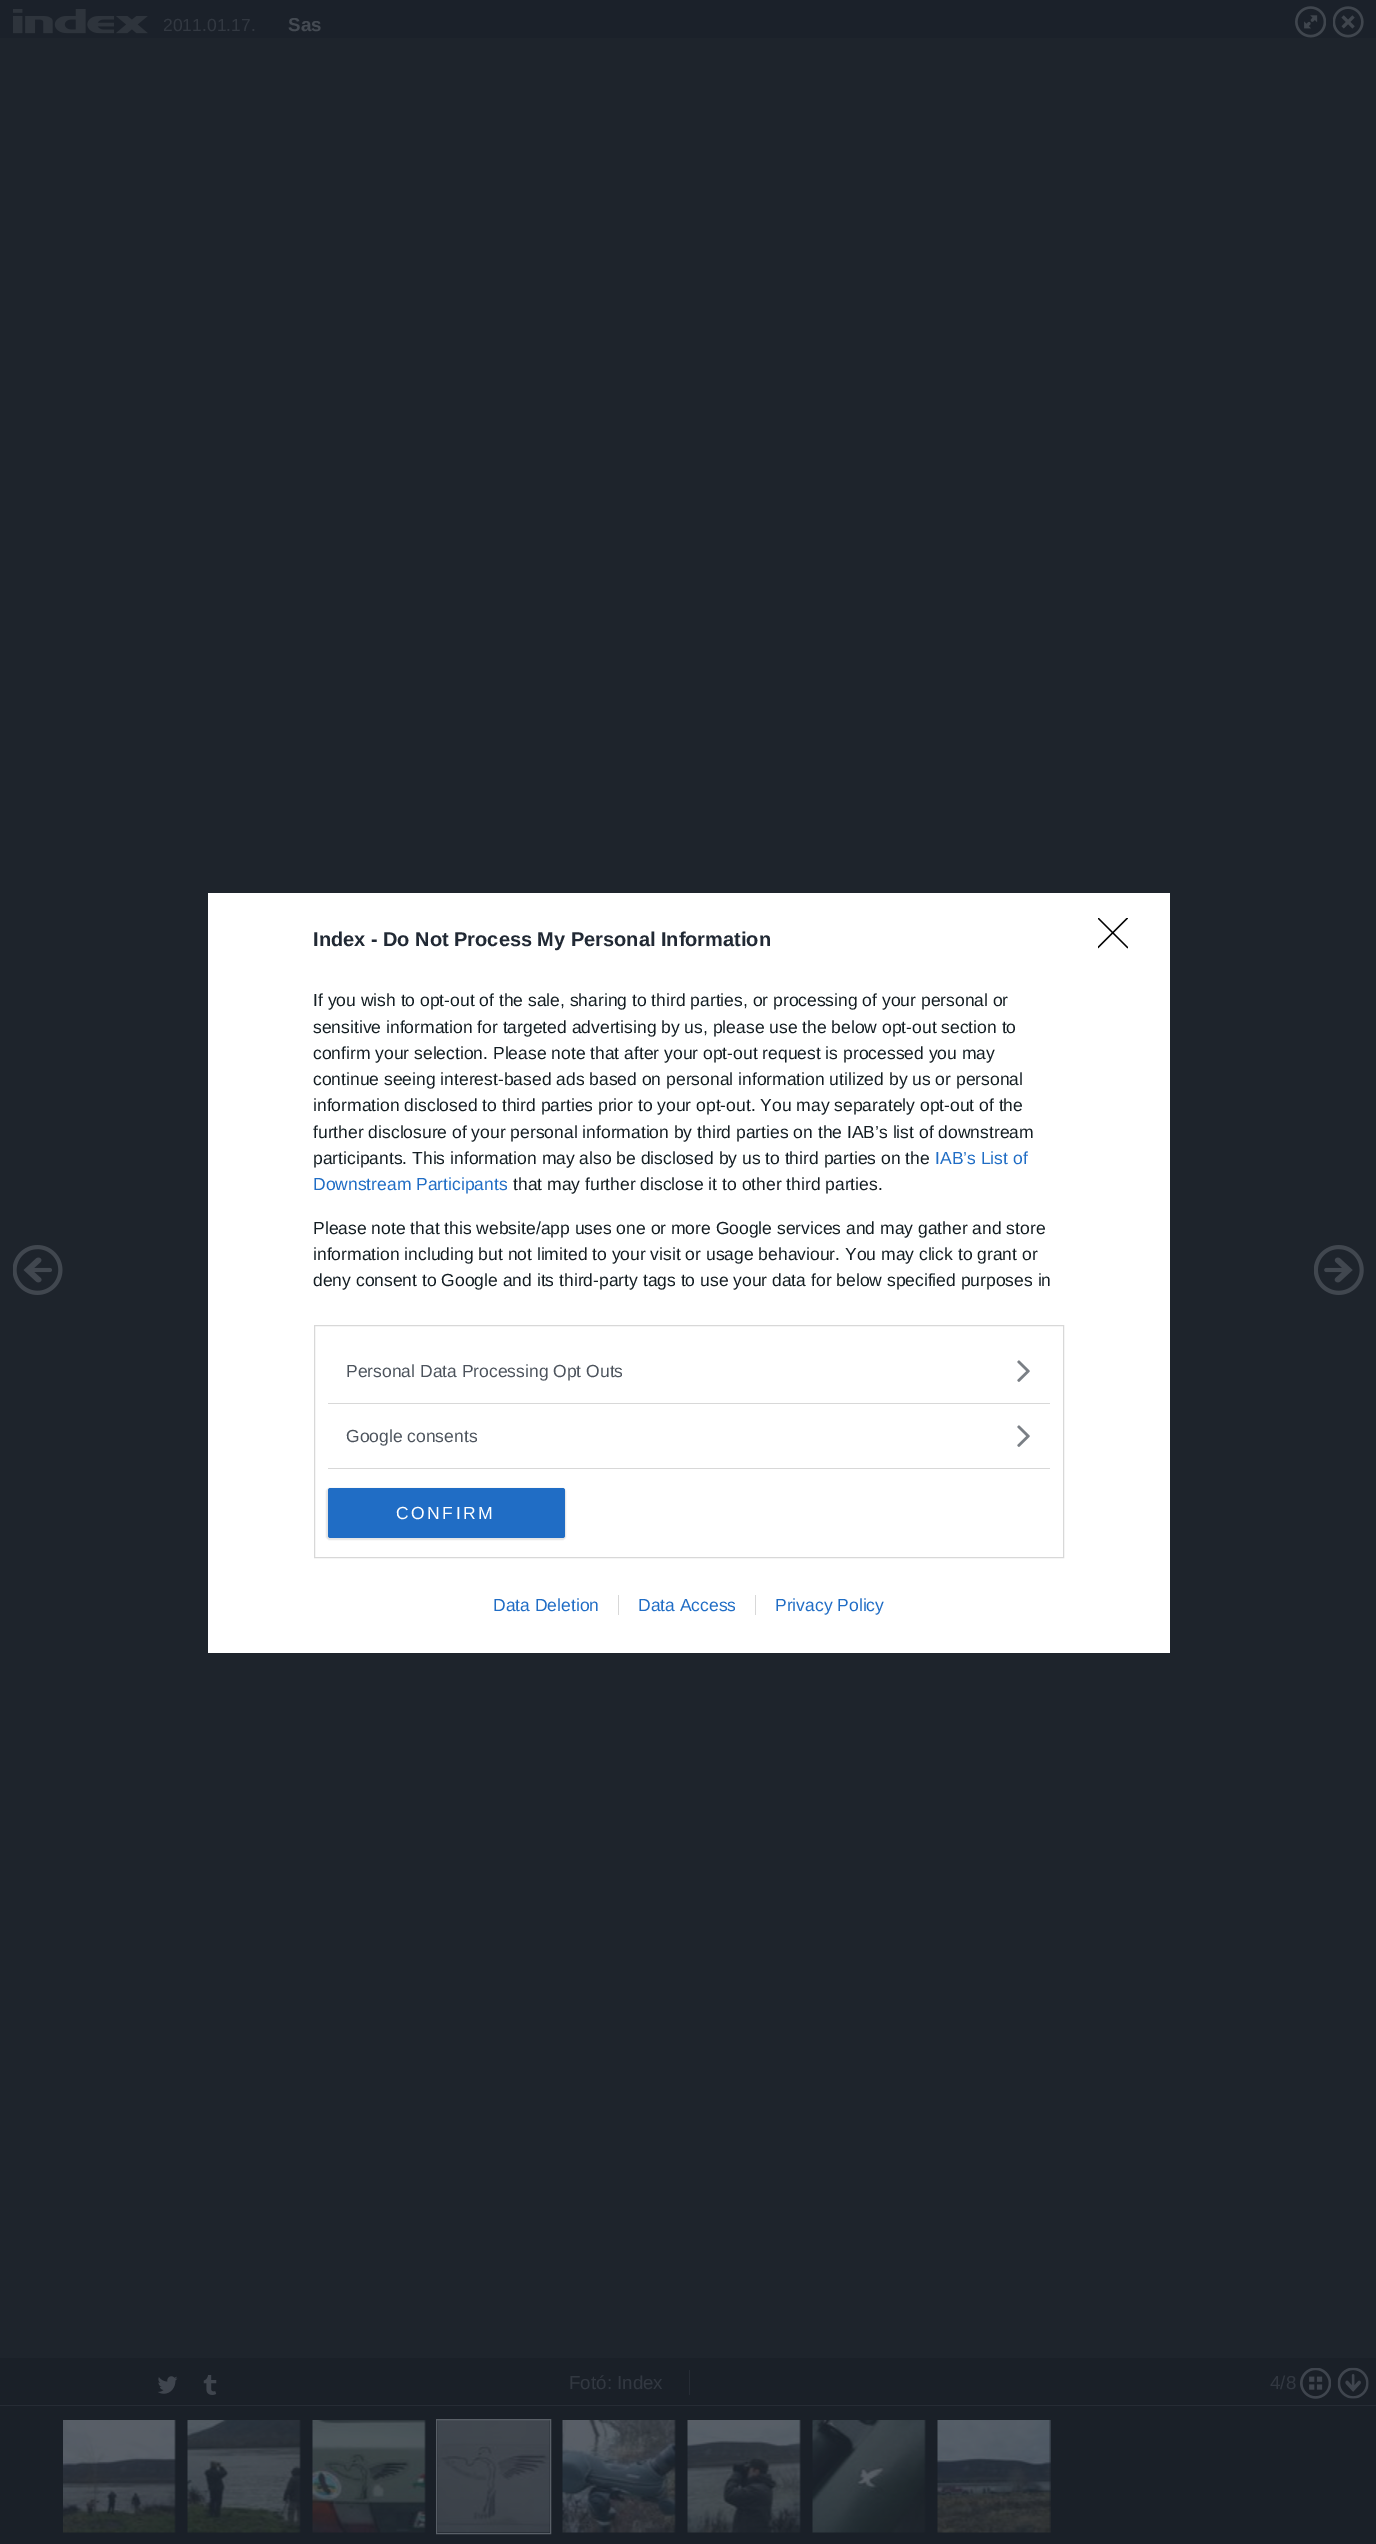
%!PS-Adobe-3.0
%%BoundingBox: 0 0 1376 2544
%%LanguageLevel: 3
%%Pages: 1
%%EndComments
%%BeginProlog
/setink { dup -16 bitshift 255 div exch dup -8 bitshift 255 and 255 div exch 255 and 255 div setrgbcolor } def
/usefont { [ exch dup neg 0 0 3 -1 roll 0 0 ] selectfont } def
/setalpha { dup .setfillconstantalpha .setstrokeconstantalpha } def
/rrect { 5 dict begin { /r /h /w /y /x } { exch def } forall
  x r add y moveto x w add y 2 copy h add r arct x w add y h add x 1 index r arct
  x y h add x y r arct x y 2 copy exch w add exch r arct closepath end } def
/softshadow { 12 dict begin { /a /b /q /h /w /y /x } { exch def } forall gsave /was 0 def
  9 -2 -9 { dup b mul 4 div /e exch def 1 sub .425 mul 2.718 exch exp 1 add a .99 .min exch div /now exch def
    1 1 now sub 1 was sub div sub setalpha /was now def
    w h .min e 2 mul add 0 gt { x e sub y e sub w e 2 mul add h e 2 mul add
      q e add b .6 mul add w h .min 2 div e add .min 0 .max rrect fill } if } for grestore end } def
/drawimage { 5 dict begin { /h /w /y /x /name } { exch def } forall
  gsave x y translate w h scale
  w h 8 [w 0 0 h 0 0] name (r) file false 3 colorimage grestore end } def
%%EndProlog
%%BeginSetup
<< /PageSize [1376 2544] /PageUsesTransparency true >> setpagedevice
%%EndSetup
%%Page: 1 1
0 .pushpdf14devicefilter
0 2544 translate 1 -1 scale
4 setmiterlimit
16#1E242C setink
0 0 1376 2544 rectfill
16#1B212A setink
0 0 1376 38 rectfill
(img1.raw) 13 9 135 25 drawimage
/LiberationSans-Regular 17.5 usefont
16#323841 setink
163 31 moveto (2011.01.17.) show
/LiberationSans-Bold 18.75 usefont
16#444A52 setink
288 31 moveto (Sas) show
(img2.raw) 1295 6 31 32 drawimage
(img3.raw) 1333 6 31 32 drawimage
(img4.raw) 13 1245 50 50 drawimage
(img5.raw) 1314 1245 50 50 drawimage
16#1A2028 setink
0 2358 1376 186 rectfill
(img6.raw) 157 2376 21 18 drawimage
(img7.raw) 203 2375 14 20 drawimage
16#262C35 setink
689 2370 1 25 rectfill
(img8.raw) 1300 2368 31 31 drawimage
(img9.raw) 1337 2367 32 32 drawimage
/LiberationSans-Regular 18.75 usefont
16#323841 setink
569 2389 moveto (Fotó: Index) show
1270 2389 moveto (4/8) show
(img10.raw) 63 2420 113 113 drawimage
(img11.raw) 187 2420 114 113 drawimage
(img12.raw) 312 2420 114 113 drawimage
(img13.raw) 437 2420 113 113 drawimage
16#595F67 setink
436.5 2419.5 114 114 rectstroke
(img14.raw) 562 2420 114 113 drawimage
(img15.raw) 687 2420 114 113 drawimage
(img16.raw) 812 2420 114 113 drawimage
(img17.raw) 937 2420 114 113 drawimage
16#262C35 setink
0 2405 1376 1 rectfill
16#FFFFFF setink
208 893 962 760 rectfill
/LiberationSans-Bold 20 usefont
16#212934 setink
313 946 moveto (Index - Do Not Process My Personal Information) show
/LiberationSans-Regular 17.5 usefont
16#141E23 setink
[
    [(If you wish to opt-out of the sale, sharing to third parties, or processing of your personal or) 313 1006]
    [(sensitive information for targeted advertising by us, please use the below opt-out section to) 313 1033]
    [(confirm your selection. Please note that after your opt-out request is processed you may) 313 1059]
    [(continue seeing interest-based ads based on personal information utilized by us or personal) 313 1085]
    [(information disclosed to third parties prior to your opt-out. You may separately opt-out of the) 313 1111]
    [(further disclosure of your personal information by third parties on the IAB’s list of downstream) 313 1138]
    [(participants. This information may also be disclosed by us to third parties on the) 313 1164]
] { aload pop moveto show } forall
16#206DC5 setink
935 1164 moveto (IAB’s List of) show
313 1190 moveto (Downstream Participants) show
16#141E23 setink
[
    [(that may further disclose it to other third parties.) 513 1190]
    [(Please note that this website/app uses one or more Google services and may gather and store) 313 1234]
    [(information including but not limited to your visit or usage behaviour. You may click to grant or) 313 1260]
    [(deny consent to Google and its third-party tags to use your data for below specified purposes in) 313 1286]
] { aload pop moveto show } forall
16#D8D8D8 setink
314.5 1325.5 749 232 rectstroke
328 1403 722 1 rectfill
16#4D545D setink
346 1377 moveto (Personal Data Processing Opt Outs) show
(img18.raw) 1017 1360 13 22 drawimage
16#D8D8D8 setink
328 1468 722 1 rectfill
16#4D545D setink
346 1442 moveto (Google consents) show
(img18.raw) 1017 1425 13 22 drawimage
16#000000 setink
326 1488 240 52 4 0.5 0.1 softshadow
16#206DC5 setink
328 1488 237 50 2.5 rrect fill
16#FFFFFF setink
396 1519 moveto 2.5 0 (CONFIRM) ashow
gsave
1098 918 30 31 rectclip
16#000000 setink
1.3 setlinewidth
1 setlinecap
1 setlinejoin
1098 918 moveto 1127.5 947.5 lineto 1127.5 918 moveto 1098 947.5 lineto stroke
grestore
16#206DC5 setink
493 1611 moveto (Data Deletion) show
638 1611 moveto (Data Access) show
16#D8D8D8 setink
618 1595 1 20 rectfill
16#206DC5 setink
775 1611 moveto (Privacy Policy) show
16#D8D8D8 setink
755 1595 1 20 rectfill
.poppdf14devicefilter showpage
%%EOF
